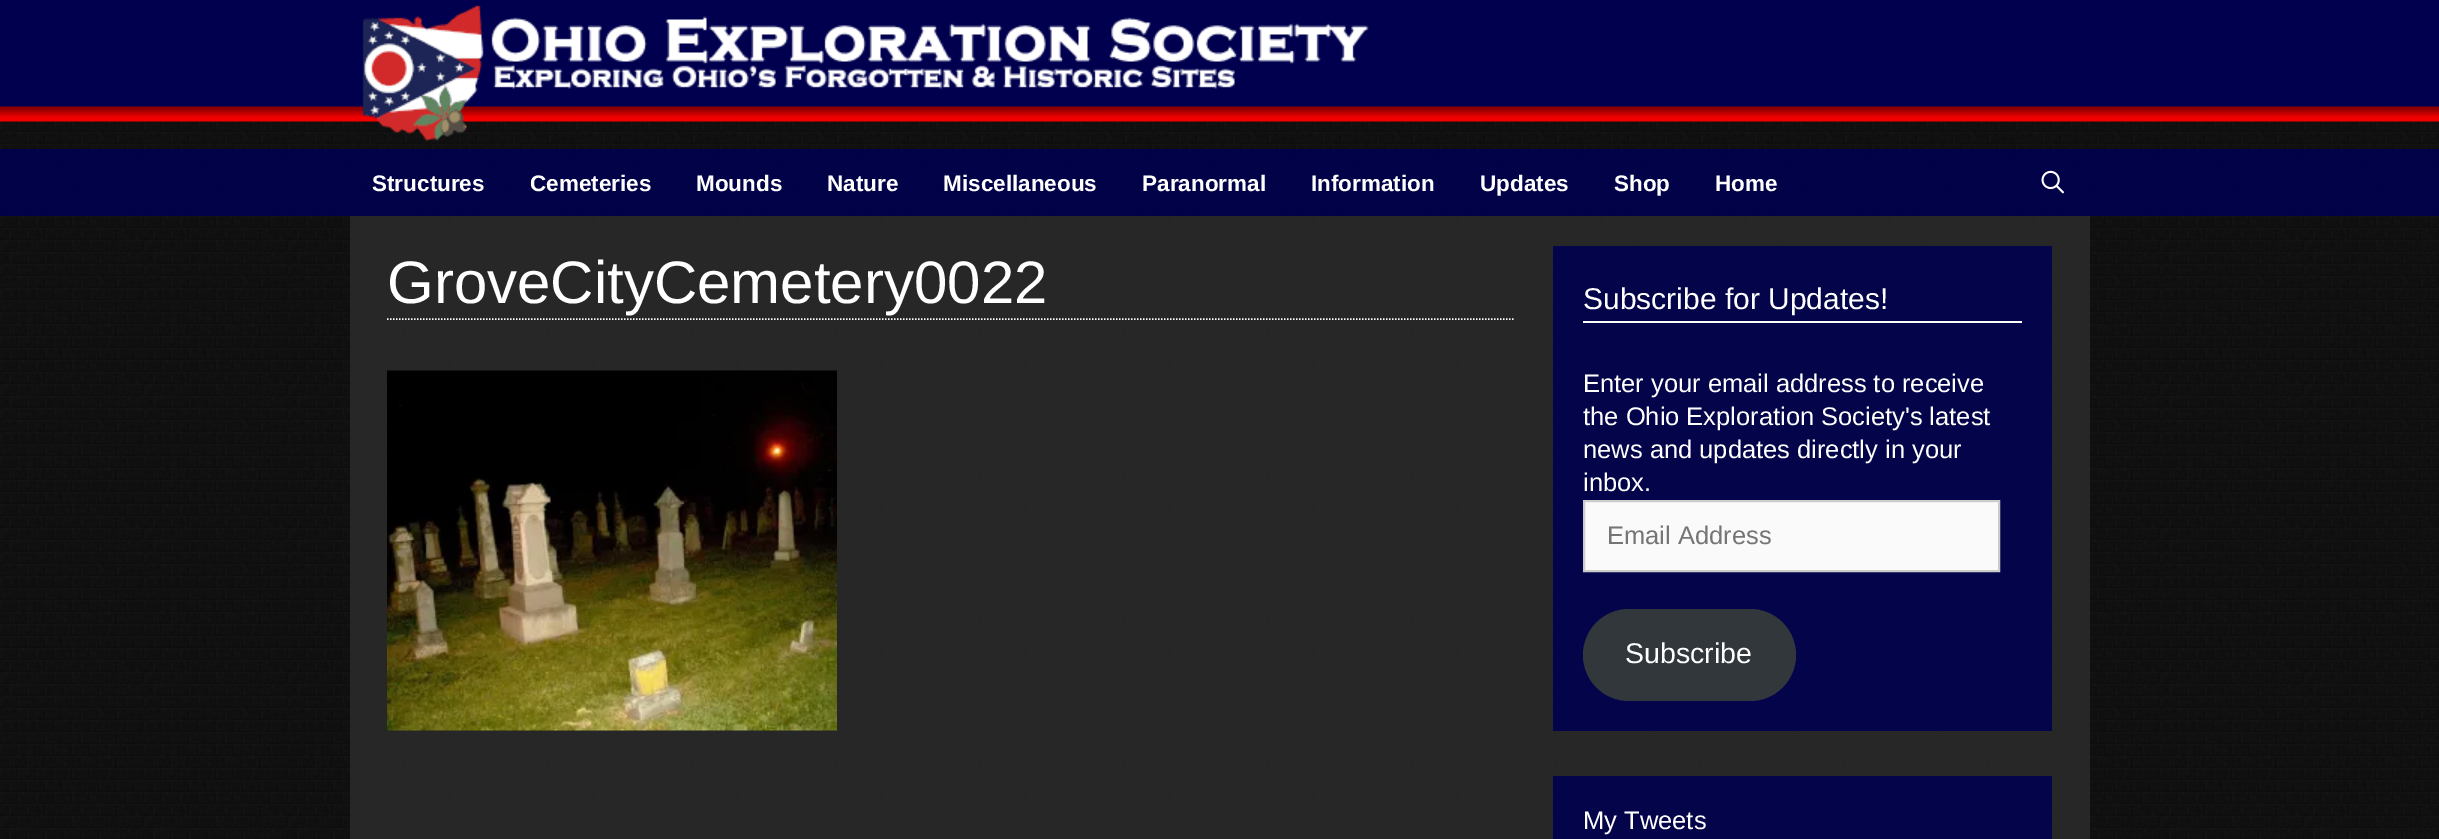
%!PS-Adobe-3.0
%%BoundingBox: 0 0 2439 839
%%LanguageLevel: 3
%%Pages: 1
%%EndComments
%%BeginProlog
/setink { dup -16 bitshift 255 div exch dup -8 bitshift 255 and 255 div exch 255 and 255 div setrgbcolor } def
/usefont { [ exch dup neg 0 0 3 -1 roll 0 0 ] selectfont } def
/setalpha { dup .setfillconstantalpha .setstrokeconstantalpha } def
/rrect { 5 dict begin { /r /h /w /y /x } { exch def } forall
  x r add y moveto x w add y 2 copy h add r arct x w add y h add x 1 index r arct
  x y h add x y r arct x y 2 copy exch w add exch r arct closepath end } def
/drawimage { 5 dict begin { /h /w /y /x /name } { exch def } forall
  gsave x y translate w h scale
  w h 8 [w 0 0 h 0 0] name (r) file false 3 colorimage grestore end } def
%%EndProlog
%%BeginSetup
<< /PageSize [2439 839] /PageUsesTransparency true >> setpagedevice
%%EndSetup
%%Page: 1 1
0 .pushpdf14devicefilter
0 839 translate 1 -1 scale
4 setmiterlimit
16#FFFFFF setink
0 0 2439 839 rectfill
(img1.raw) 0 121 2439 718 drawimage
(img2.raw) 0 0 2439 122 drawimage
(img3.raw) 362 5 1007 137 drawimage
0.9 setalpha
16#00004E setink
0 149 2439 67 rectfill
/LiberationSans-Bold 22.5 usefont
1 setalpha
16#FFFFFF setink
[
    [(Structures) 372 191]
    [(Cemeteries) 530 191]
    [(Mounds) 696 191]
    [(Nature) 827 191]
    [(Miscellaneous) 943 191]
    [(Paranormal) 1142 191]
    [(Information) 1311 191]
    [(Updates) 1480 191]
    [(Shop) 1614 191]
    [(Home) 1715 191]
] { aload pop moveto show } forall
(img4.raw) 2041 170 23 24 drawimage
0.79 setalpha
16#2D2D2D setink
350 216 1740 623 rectfill
1 setalpha
16#FFFFFF setink
1.5 setlinewidth
[1.5 1.5] 0 setdash
387 319 moveto 1515 319 lineto stroke
/LiberationSans-Regular 60 usefont
387 303 moveto (GroveCityCemetery0022) show
(img5.raw) 387 370 450 361 drawimage
16#04044A setink
1553 246 499 485 rectfill
16#FFFFFF setink
1583 321 439 2 rectfill
/LiberationSans-Regular 30 usefont
1583 309 moveto (Subscribe for Updates!) show
/LiberationSans-Regular 25.5 usefont
[
    [(Enter your email address to receive) 1583 392]
    [(the Ohio Exploration Society's latest) 1583 425]
    [(news and updates directly in your) 1583 458]
    [(inbox.) 1583 491]
] { aload pop moveto show } forall
16#FAFAFA setink
1584 501 moveto 1999 501 lineto 1999 571 lineto 1584 571 lineto closepath gsave fill grestore
16#CCCCCC setink
2 setlinewidth
[] 0 setdash
stroke
16#757575 setink
1607 544 moveto (Email Address) show
16#32373C setink
1583 609 213 92 46 rrect fill
/LiberationSans-Regular 28.5 usefont
16#FFFFFF setink
1625 663 moveto (Subscribe) show
16#04044A setink
1553 776 499 63 rectfill
/LiberationSans-Regular 25.5 usefont
16#FFFFFF setink
1583 829 moveto (My Tweets) show
.poppdf14devicefilter showpage
%%EOF
